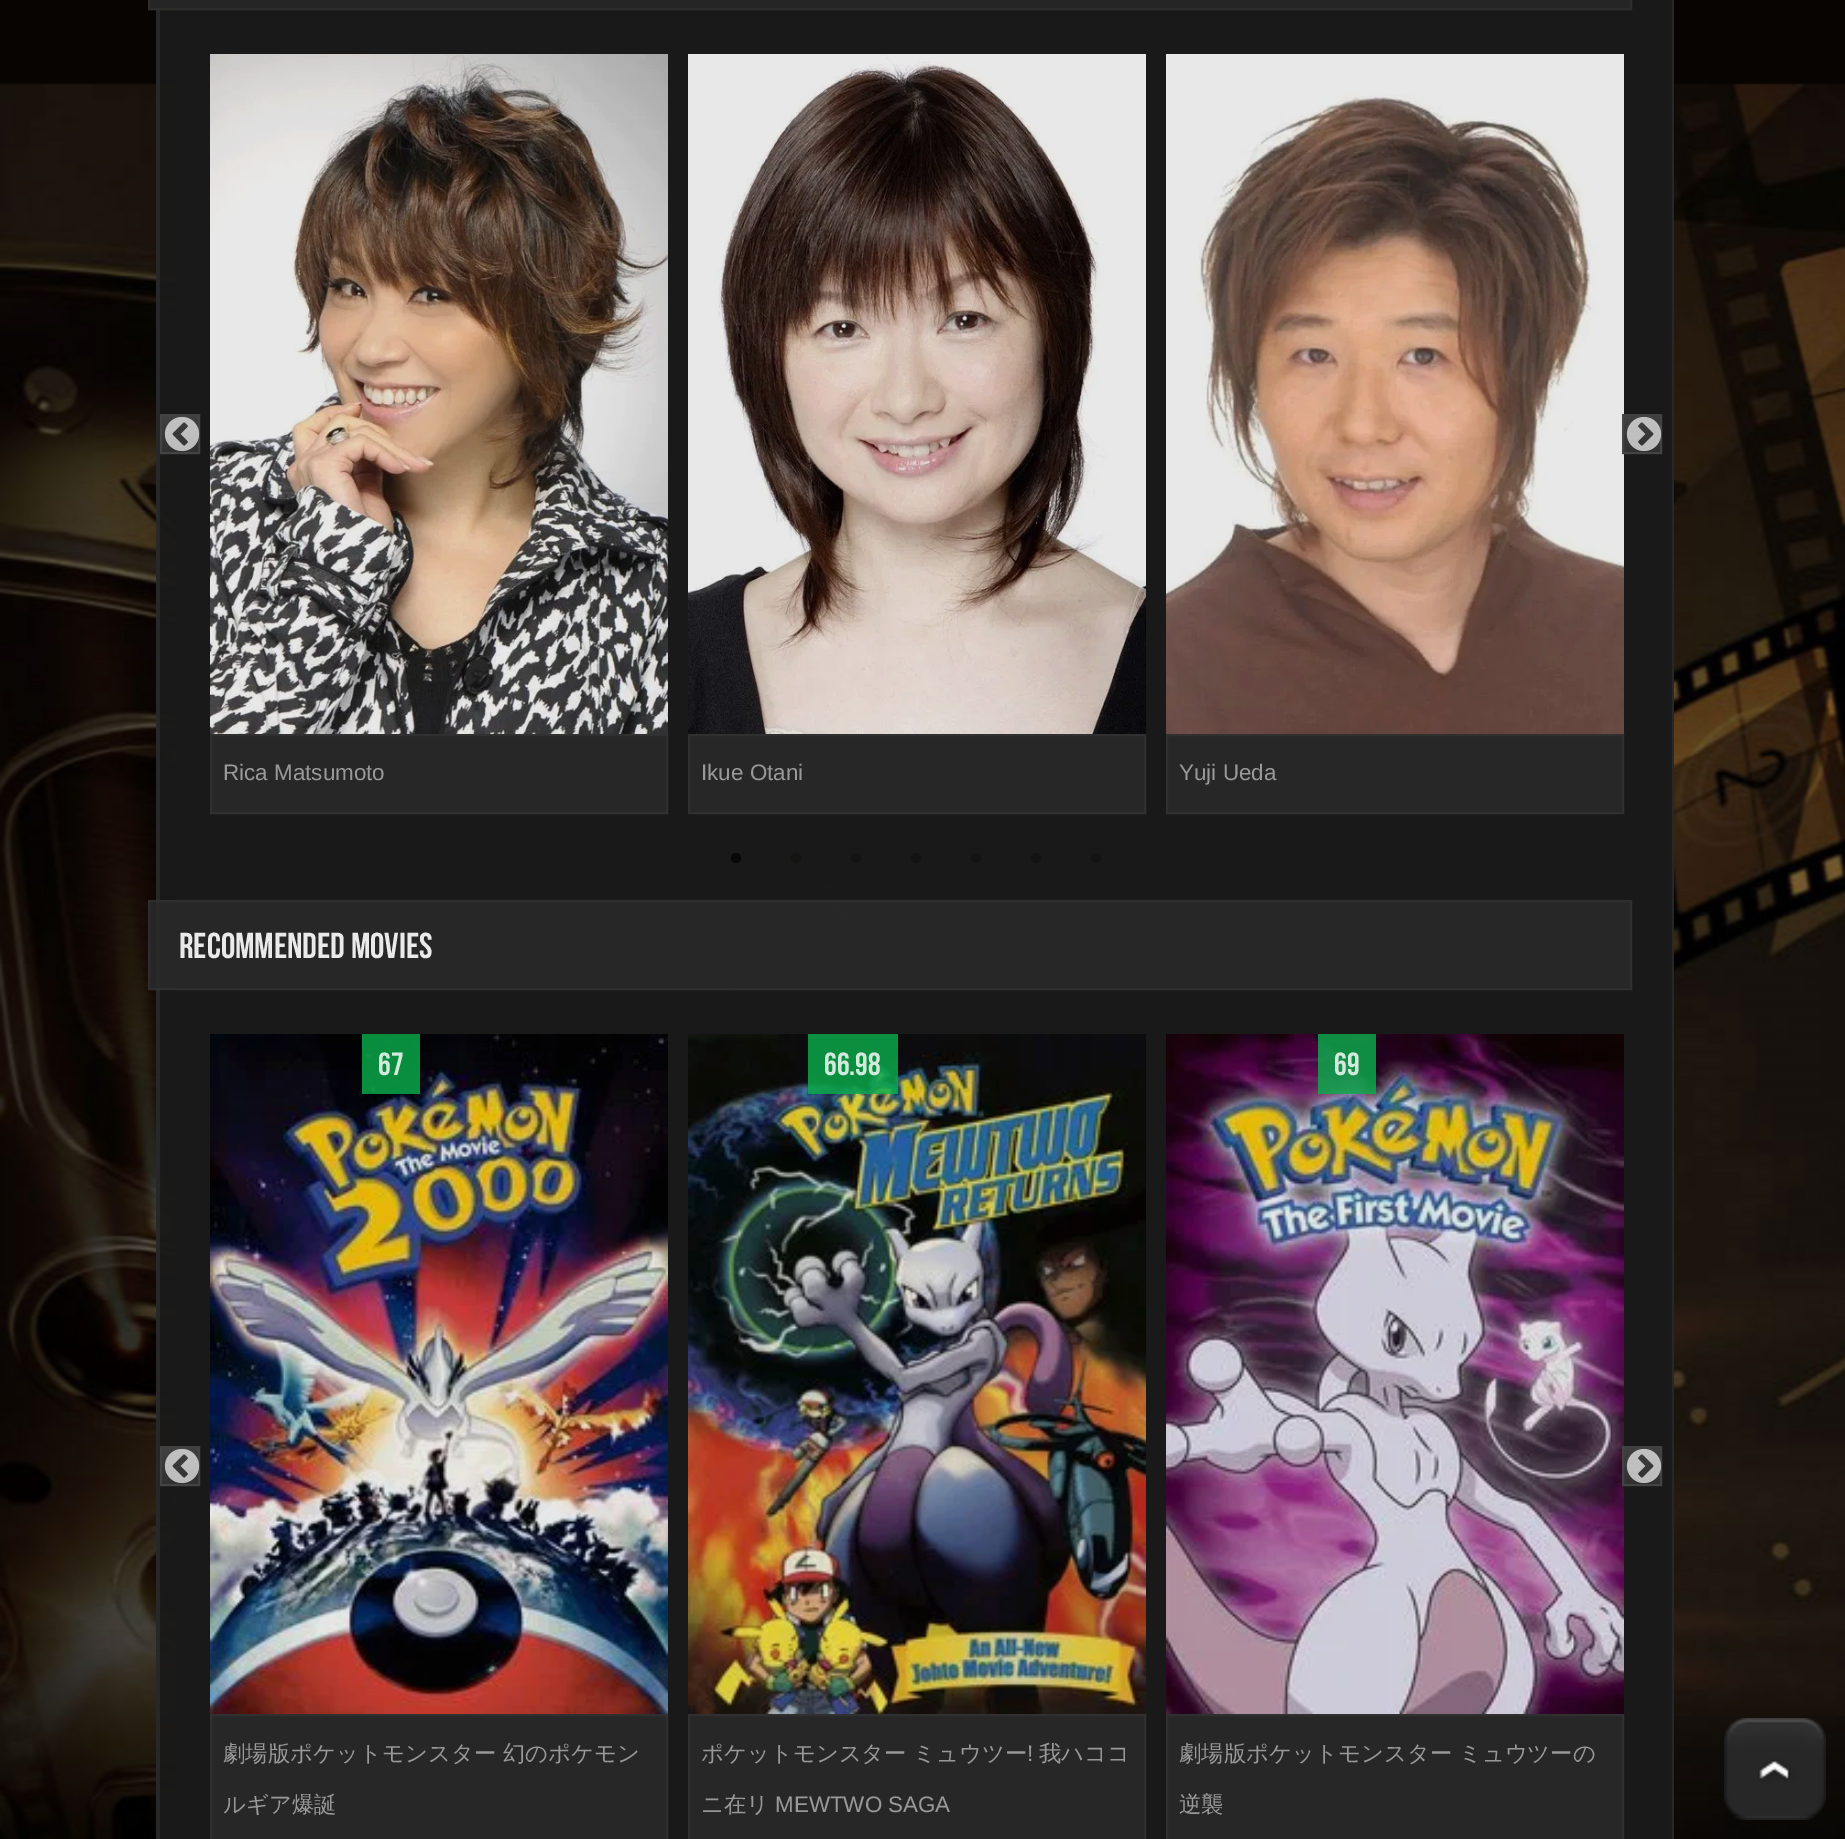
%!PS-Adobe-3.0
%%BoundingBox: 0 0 1845 1839
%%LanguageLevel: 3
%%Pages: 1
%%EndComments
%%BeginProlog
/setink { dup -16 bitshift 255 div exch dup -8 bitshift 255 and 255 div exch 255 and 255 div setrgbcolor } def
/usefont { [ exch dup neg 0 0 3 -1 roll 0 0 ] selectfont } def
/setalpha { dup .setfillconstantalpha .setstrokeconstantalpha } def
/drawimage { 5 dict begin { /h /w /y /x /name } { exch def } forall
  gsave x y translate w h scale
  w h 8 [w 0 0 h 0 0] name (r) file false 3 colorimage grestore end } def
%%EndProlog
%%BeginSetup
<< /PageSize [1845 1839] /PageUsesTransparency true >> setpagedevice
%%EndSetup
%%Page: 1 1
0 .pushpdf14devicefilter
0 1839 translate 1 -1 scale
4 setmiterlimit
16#FFFFFF setink
0 0 1845 1839 rectfill
(img1.raw) 0 0 1845 1839 drawimage
0.95 setalpha
[
    [156 0 1516 1839 16#191919]
    [1670 0 2 1839 16#292929]
    [156 10 2 1829 16#292929]
] { aload pop setink rectfill } forall
0.9 setalpha
[
    [176 0 1498 1839 16#191919]
    [1672 0 2 1839 16#292929]
] { aload pop setink rectfill } forall
1 setalpha
[
    [158 10 2 1829 16#272727]
] { aload pop setink rectfill } forall
16#2D2D2C setink
2 setlinewidth
149 -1 1482 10 rectstroke
16#262525 setink
150 0 1480 8 rectfill
gsave 160 414 moveto 200 414 lineto 200 416 lineto 160 416 lineto closepath clip newpath
<< /ShadingType 2 /ColorSpace /DeviceRGB /Coords [180 380 180 416] /Extend [true true] /Function << /FunctionType 2 /Domain [0 1] /C0 [0.247 0.247 0.243] /C1 [0.188 0.184 0.184] /N 1 >> >> shfill grestore
gsave 160 416 moveto 200 416 lineto 200 452 lineto 160 452 lineto closepath clip newpath
<< /ShadingType 2 /ColorSpace /DeviceRGB /Coords [180 416 180 452] /Extend [true true] /Function << /FunctionType 2 /Domain [0 1] /C0 [0.251 0.251 0.251] /C1 [0.188 0.188 0.188] /N 1 >> >> shfill grestore
gsave 160 452 moveto 200 452 lineto 200 454 lineto 160 454 lineto closepath clip newpath
<< /ShadingType 2 /ColorSpace /DeviceRGB /Coords [180 452 180 488] /Extend [true true] /Function << /FunctionType 2 /Domain [0 1] /C0 [0.251 0.251 0.251] /C1 [0.188 0.188 0.188] /N 1 >> >> shfill grestore
0.9 setalpha
16#444444 setink
161 415 38 38 rectstroke
1 setalpha
(img2.raw) 164 416 36 36 drawimage
(img6.raw) 1166 54 458 680 drawimage
gsave 1622 414 moveto 1662 414 lineto 1662 416 lineto 1622 416 lineto closepath clip newpath
<< /ShadingType 2 /ColorSpace /DeviceRGB /Coords [1642 380 1642 416] /Extend [true true] /Function << /FunctionType 2 /Domain [0 1] /C0 [0.255 0.251 0.247] /C1 [0.196 0.192 0.184] /N 1 >> >> shfill grestore
0.9 setalpha
gsave 1622 416 moveto 1662 416 lineto 1662 452 lineto 1622 452 lineto closepath clip newpath
<< /ShadingType 2 /ColorSpace /DeviceRGB /Coords [1642 416 1642 452] /Extend [true true] /Function << /FunctionType 2 /Domain [0 1] /C0 [0.267 0.267 0.267] /C1 [0.2 0.2 0.2] /N 1 >> >> shfill grestore
gsave 1622 452 moveto 1662 452 lineto 1662 454 lineto 1622 454 lineto closepath clip newpath
<< /ShadingType 2 /ColorSpace /DeviceRGB /Coords [1642 452 1642 488] /Extend [true true] /Function << /FunctionType 2 /Domain [0 1] /C0 [0.267 0.267 0.267] /C1 [0.2 0.2 0.2] /N 1 >> >> shfill grestore
1623 415 38 38 rectstroke
1 setalpha
(img3.raw) 1626 416 36 36 drawimage
(img4.raw) 210 54 458 680 drawimage
16#272727 setink
211 735 moveto 667 735 lineto 667 813 lineto 211 813 lineto closepath gsave fill grestore
16#303030 setink
stroke
/LiberationSans-Regular 22.4 usefont
16#999999 setink
223 780 moveto (Rica Matsumoto) show
(img5.raw) 688 54 458 680 drawimage
16#272727 setink
689 735 moveto 1145 735 lineto 1145 813 lineto 689 813 lineto closepath gsave fill grestore
16#303030 setink
stroke
16#999999 setink
701 780 moveto (Ikue Otani) show
16#272727 setink
1167 735 moveto 1623 735 lineto 1623 813 lineto 1167 813 lineto closepath gsave fill grestore
16#303030 setink
stroke
16#999999 setink
1179 780 moveto (Yuji Ueda) show
(img7.raw) 731 853 10 10 drawimage
(img8.raw) 791 853 10 10 drawimage
(img9.raw) 851 853 10 10 drawimage
(img10.raw) 911 853 10 10 drawimage
(img9.raw) 971 853 10 10 drawimage
(img9.raw) 1031 853 10 10 drawimage
(img11.raw) 1091 853 10 10 drawimage
0.9 setalpha
16#313131 setink
149 901 1482 88 rectstroke
16#292929 setink
150 902 1480 86 rectfill
/BebasNeue-Regular 36 usefont
1 setalpha
16#EAEAEA setink
179 958 moveto (RECOMMENDED MOVIES) show
gsave 160 1446 moveto 200 1446 lineto 200 1448 lineto 160 1448 lineto closepath clip newpath
<< /ShadingType 2 /ColorSpace /DeviceRGB /Coords [180 1412 180 1448] /Extend [true true] /Function << /FunctionType 2 /Domain [0 1] /C0 [0.251 0.251 0.251] /C1 [0.188 0.188 0.188] /N 1 >> >> shfill grestore
gsave 160 1448 moveto 200 1448 lineto 200 1484 lineto 160 1484 lineto closepath clip newpath
<< /ShadingType 2 /ColorSpace /DeviceRGB /Coords [180 1448 180 1484] /Extend [true true] /Function << /FunctionType 2 /Domain [0 1] /C0 [0.251 0.251 0.251] /C1 [0.188 0.188 0.188] /N 1 >> >> shfill grestore
gsave 160 1484 moveto 200 1484 lineto 200 1486 lineto 160 1486 lineto closepath clip newpath
<< /ShadingType 2 /ColorSpace /DeviceRGB /Coords [180 1484 180 1520] /Extend [true true] /Function << /FunctionType 2 /Domain [0 1] /C0 [0.251 0.251 0.251] /C1 [0.188 0.188 0.188] /N 1 >> >> shfill grestore
0.9 setalpha
16#444444 setink
161 1447 38 38 rectstroke
1 setalpha
(img2.raw) 164 1448 36 36 drawimage
(img12.raw) 210 1034 458 680 drawimage
0.81 setalpha
16#0AAD4B setink
362 1034 58 60 rectfill
/BebasNeue-Regular 32 usefont
1 setalpha
16#D1EADB setink
378 1075 moveto (67) show
16#272727 setink
211 1715 moveto 667 1715 lineto 667 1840 lineto 211 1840 lineto closepath gsave fill grestore
16#303030 setink
stroke
/WenQuanYiZenHei-Medium 22.4 usefont
16#999999 setink
223 1761 moveto (劇場版ポケットモンスター 幻のポケモン) show
223 1812 moveto (ルギア爆誕) show
(img13.raw) 688 1034 458 680 drawimage
0.81 setalpha
16#0AAD4B setink
808 1034 90 60 rectfill
/BebasNeue-Regular 32 usefont
1 setalpha
16#D1EADB setink
824 1075 moveto (66.98) show
16#272727 setink
689 1715 moveto 1145 1715 lineto 1145 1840 lineto 689 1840 lineto closepath gsave fill grestore
16#303030 setink
stroke
/WenQuanYiZenHei-Medium 22.4 usefont
16#999999 setink
701 1761 moveto (ポケットモンスター ミュウツー) show
/LiberationSans-Regular 22.4 usefont
1027 1761 moveto (!) show
/WenQuanYiZenHei-Medium 22.4 usefont
1039 1761 moveto (我ハココ) show
701 1812 moveto (ニ在リ) show
/LiberationSans-Regular 22.4 usefont
775 1812 moveto (MEWTWO SAGA) show
(img14.raw) 1166 1034 458 680 drawimage
0.81 setalpha
16#0AAD4B setink
1318 1034 58 60 rectfill
/BebasNeue-Regular 32 usefont
1 setalpha
16#D1EADB setink
1334 1075 moveto (69) show
16#272727 setink
1167 1715 moveto 1623 1715 lineto 1623 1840 lineto 1167 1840 lineto closepath gsave fill grestore
16#303030 setink
stroke
/WenQuanYiZenHei-Medium 22.4 usefont
16#999999 setink
1179 1761 moveto (劇場版ポケットモンスター ミュウツーの) show
1179 1812 moveto (逆襲) show
0.9 setalpha
gsave 1622 1446 moveto 1662 1446 lineto 1662 1448 lineto 1622 1448 lineto closepath clip newpath
<< /ShadingType 2 /ColorSpace /DeviceRGB /Coords [1642 1412 1642 1448] /Extend [true true] /Function << /FunctionType 2 /Domain [0 1] /C0 [0.267 0.267 0.267] /C1 [0.2 0.2 0.2] /N 1 >> >> shfill grestore
gsave 1622 1448 moveto 1662 1448 lineto 1662 1484 lineto 1622 1484 lineto closepath clip newpath
<< /ShadingType 2 /ColorSpace /DeviceRGB /Coords [1642 1448 1642 1484] /Extend [true true] /Function << /FunctionType 2 /Domain [0 1] /C0 [0.267 0.267 0.267] /C1 [0.2 0.2 0.2] /N 1 >> >> shfill grestore
gsave 1622 1484 moveto 1662 1484 lineto 1662 1486 lineto 1622 1486 lineto closepath clip newpath
<< /ShadingType 2 /ColorSpace /DeviceRGB /Coords [1642 1484 1642 1520] /Extend [true true] /Function << /FunctionType 2 /Domain [0 1] /C0 [0.267 0.267 0.267] /C1 [0.2 0.2 0.2] /N 1 >> >> shfill grestore
16#444444 setink
1623 1447 38 38 rectstroke
1 setalpha
(img15.raw) 1626 1448 36 36 drawimage
(img16.raw) 1724 1718 102 102 drawimage
.poppdf14devicefilter showpage
%%EOF
